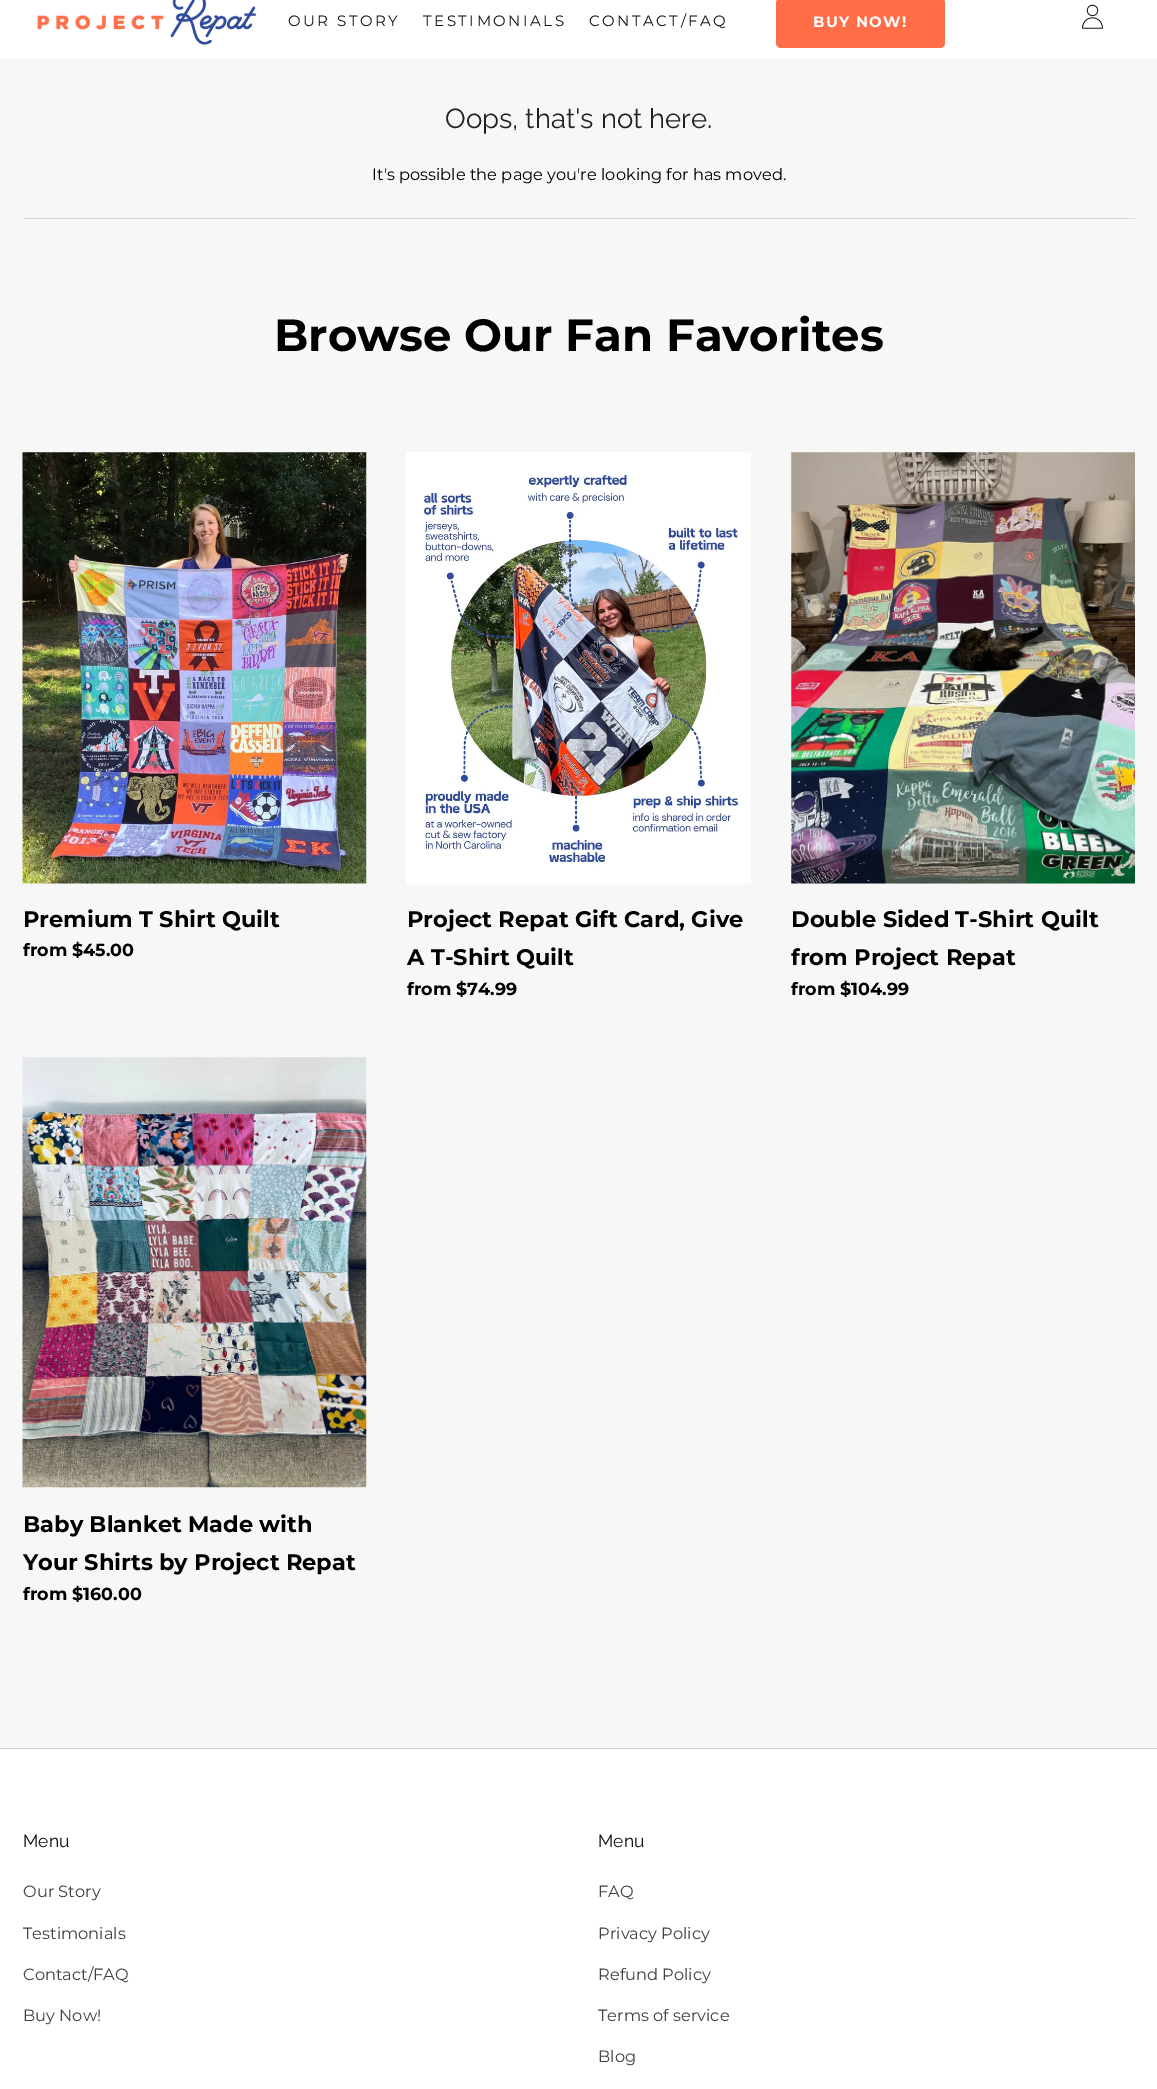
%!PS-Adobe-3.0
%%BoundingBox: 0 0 1157 2089
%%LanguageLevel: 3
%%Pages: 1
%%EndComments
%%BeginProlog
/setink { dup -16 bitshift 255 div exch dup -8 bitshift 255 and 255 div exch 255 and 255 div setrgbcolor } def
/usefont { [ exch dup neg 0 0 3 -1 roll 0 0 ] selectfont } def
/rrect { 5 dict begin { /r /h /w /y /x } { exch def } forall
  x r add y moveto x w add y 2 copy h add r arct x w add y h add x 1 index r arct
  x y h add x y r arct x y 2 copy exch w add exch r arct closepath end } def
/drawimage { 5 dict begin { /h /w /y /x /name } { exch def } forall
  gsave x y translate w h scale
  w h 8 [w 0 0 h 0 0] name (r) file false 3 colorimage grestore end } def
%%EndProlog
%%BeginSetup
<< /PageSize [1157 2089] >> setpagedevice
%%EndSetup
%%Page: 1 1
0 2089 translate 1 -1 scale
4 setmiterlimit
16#F7F7F7 setink
0 0 1157 2089 rectfill
16#FFFFFF setink
0 0 1157 59 rectfill
(img1.raw) 37 0 220 45 drawimage
/Montserrat-Regular 15 usefont
16#111111 setink
288 26 moveto 2.5 0 (OUR STORY) ashow
423 26 moveto 2.5 0 (TESTIMONIALS) ashow
589 26 moveto 2.5 0 (CONTACT/FAQ) ashow
16#FF6E48 setink
776 -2 169 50 5 rrect fill
/Montserrat-Bold 15 usefont
16#FFFFFF setink
813 27 moveto 1.25 0 (BUY NOW!) ashow
(img2.raw) 1082 4 21 25 drawimage
/Raleway-Regular 27.5 usefont
16#212121 setink
445 128 moveto (Oops, that's not here.) show
/Montserrat-Regular 16.25 usefont
16#000000 setink
372 180 moveto (It's possible the page you're looking for has moved.) show
16#D9D9D9 setink
23 218 1112 1 rectfill
/Montserrat-Bold 45 usefont
16#000000 setink
274 351 moveto (Browse Our Fan Favorites) show
(img3.raw) 22 452 345 432 drawimage
/Montserrat-Bold 22.5 usefont
23 927 moveto (Premium T Shirt Quilt) show
/Montserrat-Bold 17.5 usefont
23 956 moveto (from $45.00) show
(img4.raw) 406 452 345 432 drawimage
/Montserrat-Bold 22.5 usefont
407 927 moveto (Project Repat Gift Card, Give) show
407 965 moveto (A T-Shirt Quilt) show
/Montserrat-Bold 17.5 usefont
407 995 moveto (from $74.99) show
(img5.raw) 791 452 344 432 drawimage
/Montserrat-Bold 22.5 usefont
791 927 moveto (Double Sided T-Shirt Quilt) show
791 965 moveto (from Project Repat) show
/Montserrat-Bold 17.5 usefont
791 995 moveto (from $104.99) show
(img6.raw) 22 1057 345 431 drawimage
/Montserrat-Bold 22.5 usefont
23 1532 moveto (Baby Blanket Made with) show
23 1570 moveto (Your Shirts by Project Repat) show
/Montserrat-Bold 17.5 usefont
23 1600 moveto (from $160.00) show
16#FFFFFF setink
0 1749 1157 340 rectfill
16#CFCFCF setink
0 1748 1157 1 rectfill
/Raleway-Regular 17.5 usefont
16#111111 setink
23 1847 moveto (Menu) show
/Montserrat-Regular 16.25 usefont
16#414141 setink
[
    [(Our Story) 23 1897]
    [(Testimonials) 23 1939]
    [(Contact/FAQ) 23 1980]
    [(Buy Now!) 23 2021]
] { aload pop moveto show } forall
/Raleway-Regular 17.5 usefont
16#111111 setink
598 1847 moveto (Menu) show
/Montserrat-Regular 16.25 usefont
16#414141 setink
[
    [(FAQ) 598 1897]
    [(Privacy Policy) 598 1939]
    [(Refund Policy) 598 1980]
    [(Terms of service) 598 2021]
    [(Blog) 598 2062]
] { aload pop moveto show } forall
showpage
%%EOF
